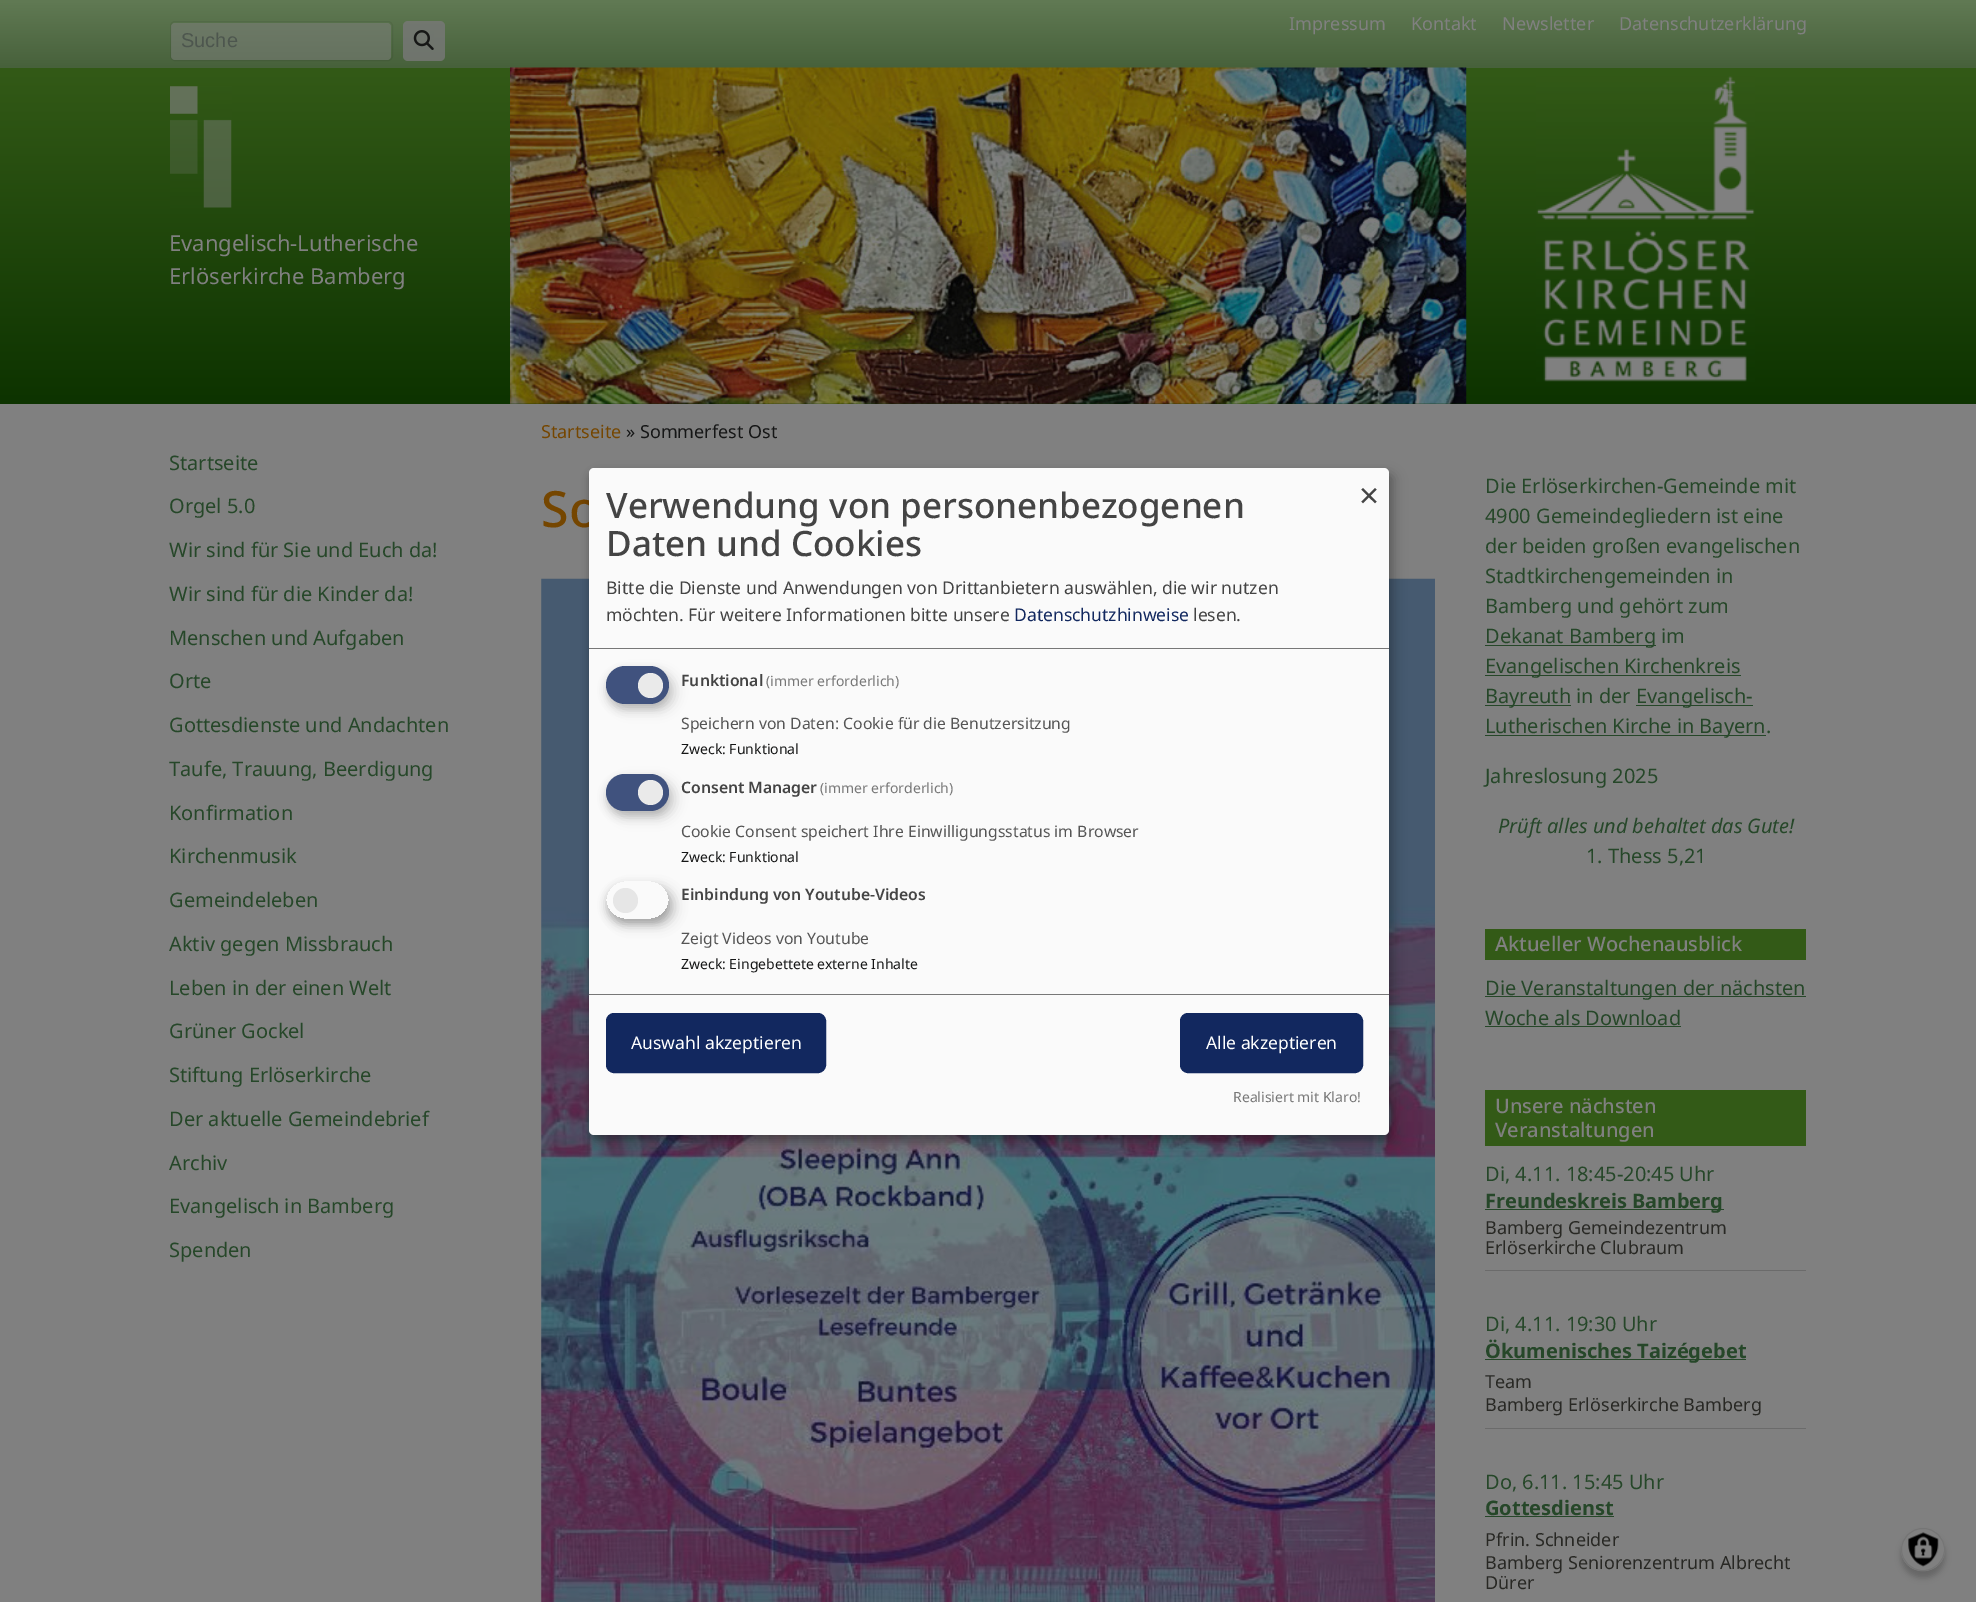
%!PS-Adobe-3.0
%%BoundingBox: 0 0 1976 1602
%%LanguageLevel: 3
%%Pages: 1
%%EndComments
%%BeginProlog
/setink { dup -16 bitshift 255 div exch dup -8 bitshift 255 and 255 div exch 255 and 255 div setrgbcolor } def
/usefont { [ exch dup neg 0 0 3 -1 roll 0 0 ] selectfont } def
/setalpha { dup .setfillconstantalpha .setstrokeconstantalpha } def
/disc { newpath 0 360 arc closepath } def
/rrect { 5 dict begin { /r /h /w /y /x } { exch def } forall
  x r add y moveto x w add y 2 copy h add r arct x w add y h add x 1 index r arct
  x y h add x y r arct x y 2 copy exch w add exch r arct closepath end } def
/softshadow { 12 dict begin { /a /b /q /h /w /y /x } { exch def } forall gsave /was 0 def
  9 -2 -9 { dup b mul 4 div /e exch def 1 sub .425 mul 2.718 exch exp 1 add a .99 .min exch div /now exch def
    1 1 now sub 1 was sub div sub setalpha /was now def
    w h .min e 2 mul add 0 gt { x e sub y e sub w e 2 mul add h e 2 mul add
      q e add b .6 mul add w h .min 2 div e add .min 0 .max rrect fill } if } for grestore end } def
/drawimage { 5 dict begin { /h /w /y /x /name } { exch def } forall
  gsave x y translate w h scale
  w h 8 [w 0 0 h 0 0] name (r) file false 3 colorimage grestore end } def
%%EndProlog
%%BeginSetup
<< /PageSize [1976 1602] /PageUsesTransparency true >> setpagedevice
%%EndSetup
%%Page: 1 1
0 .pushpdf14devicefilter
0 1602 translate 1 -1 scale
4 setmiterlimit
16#808080 setink
0 0 1976 1602 rectfill
gsave 0 0 moveto 1976 0 lineto 1976 68 lineto 0 68 lineto closepath clip newpath
<< /ShadingType 2 /ColorSpace /DeviceRGB /Coords [988 0 988 68] /Extend [true true] /Function << /FunctionType 2 /Domain [0 1] /C0 [0.38 0.478 0.329] /C1 [0.278 0.38 0.231] /N 1 >> >> shfill grestore
/NotoSans-Regular 18 usefont
[
    [(Impressum) 1289 30]
    [(Kontakt) 1411 30]
    [(Newsletter) 1502 30]
    [(Datenschutzerklärung) 1619 30]
] { aload pop moveto show } forall
0.5 setalpha
171 23 220 37 4 rrect fill
0.07 setalpha
16#000000 setink
170.5 21.5 222 39 4.5 rrect stroke
/LiberationSans-Regular 20 usefont
1 setalpha
16#4D564E setink
181 47 moveto (Suche) show
0.8 setalpha
16#787878 setink
403 21 42 40 5 rrect fill
1 setalpha
(img1.raw) 413 30 21 20 drawimage
gsave 0 68 moveto 1976 68 lineto 1976 404 lineto 0 404 lineto closepath clip newpath
<< /ShadingType 2 /ColorSpace /DeviceRGB /Coords [988 67 988 404] /Extend [true true] /Function << /FunctionType 2 /Domain [0 1] /C0 [0.2 0.353 0.09] /C1 [0.051 0.2 0] /N 1 >> >> shfill grestore
(img2.raw) 170 86 62 122 drawimage
/NotoSans-Regular 22 usefont
16#808080 setink
169 251 moveto (Evangelisch-Lutherische) show
169 284 moveto (Erlöserkirche Bamberg) show
(img3.raw) 510 67 957 337 drawimage
(img4.raw) 1536 76 219 306 drawimage
/NotoSans-Regular 20 usefont
16#264729 setink
[
    [(Startseite) 169 470]
    [(Orgel 5.0) 169 513]
    [(Wir sind für Sie und Euch da!) 169 557]
    [(Wir sind für die Kinder da!) 169 601]
    [(Menschen und Aufgaben) 169 645]
    [(Orte) 169 688]
    [(Gottesdienste und Andachten) 169 732]
    [(Taufe, Trauung, Beerdigung) 169 776]
    [(Konfirmation) 169 820]
    [(Kirchenmusik) 169 863]
    [(Gemeindeleben) 169 907]
    [(Aktiv gegen Missbrauch) 169 951]
    [(Leben in der einen Welt) 169 995]
    [(Grüner Gockel) 169 1038]
    [(Stiftung Erlöserkirche) 169 1082]
    [(Der aktuelle Gemeindebrief) 169 1126]
    [(Archiv) 169 1170]
    [(Evangelisch in Bamberg) 169 1213]
    [(Spenden) 169 1257]
] { aload pop moveto show } forall
/NotoSans-Regular 18 usefont
16#754600 setink
541 438 moveto (Startseite) show
16#151616 setink
626 438 moveto (» Sommerfest Ost) show
/NotoSans-Medium 50 usefont
16#754600 setink
541 527 moveto (So) show
(img5.raw) 541 578 894 1024 drawimage
/NotoSans-Regular 20 usefont
16#264729 setink
[
    [(Die Erlöserkirchen-Gemeinde mit) 1485 493]
    [(4900 Gemeindegliedern ist eine) 1485 523]
    [(der beiden großen evangelischen) 1485 553]
    [(Stadtkirchengemeinden in) 1485 583]
    [(Bamberg und gehört zum) 1485 613]
] { aload pop moveto show } forall
1485 645 171 1 rectfill
1485 643 moveto (Dekanat Bamberg im) show
1485 675 256 1 rectfill
1485 673 moveto (Evangelischen Kirchenkreis) show
1485 705 86 1 rectfill
1485 703 moveto (Bayreuth in der) show
1636 705 117 1 rectfill
1636 703 moveto (Evangelisch-) show
1485 735 281 1 rectfill
1485 733 moveto (Lutherischen Kirche in Bayern.) show
1485 783 moveto (Jahreslosung 2025) show
/NotoSans-Italic 20 usefont
1498 833 moveto (Prüft alles und behaltet das Gute!) show
/NotoSans-Regular 20 usefont
1586 863 moveto (1. Thess 5,21) show
16#335A17 setink
1485 929 321 31 rectfill
/NotoSans-Medium 20 usefont
16#808080 setink
1495 951 moveto (Aktueller Wochenausblick) show
16#264729 setink
1485 996 321 1 rectfill
/NotoSans-Regular 20 usefont
1485 995 moveto (Die Veranstaltungen der nächsten) show
1485 1025 moveto (Woche als Download) show
1485 1026 196 1 rectfill
16#335A17 setink
1485 1090 321 56 rectfill
/NotoSans-Medium 20 usefont
16#808080 setink
1495 1113 moveto (Unsere nächsten) show
1495 1137 moveto (Veranstaltungen) show
16#6B6B6B setink
1485 1270 321 1 rectfill
/NotoSans-Regular 20 usefont
16#264729 setink
1485 1181 moveto (Di, 4.11. 18:45-20:45 Uhr) show
1485 1209 239 1 rectfill
/NotoSans-Bold 20 usefont
1485 1208 moveto (Freundeskreis Bamberg) show
/NotoSans-Regular 18 usefont
16#282824 setink
1485 1234 moveto (Bamberg Gemeindezentrum) show
1485 1254 moveto (Erlöserkirche Clubraum) show
16#6B6B6B setink
1485 1428 321 1 rectfill
/NotoSans-Regular 20 usefont
16#264729 setink
1485 1331 moveto (Di, 4.11. 19:30 Uhr) show
1485 1359 261 1 rectfill
/NotoSans-Bold 20 usefont
1485 1358 moveto (Ökumenisches Taizégebet) show
/NotoSans-Regular 18 usefont
16#282824 setink
1485 1388 moveto (Team) show
1485 1411 moveto (Bamberg Erlöserkirche Bamberg) show
/NotoSans-Regular 20 usefont
16#264729 setink
1485 1489 moveto (Do, 6.11. 15:45 Uhr) show
/NotoSans-Bold 20 usefont
1485 1515 moveto (Gottesdienst) show
1485 1516 129 1 rectfill
/NotoSans-Regular 18 usefont
16#282824 setink
[
    [(Pfrin. Schneider) 1485 1546]
    [(Bamberg Seniorenzentrum Albrecht) 1485 1569]
    [(Dürer) 1485 1589]
] { aload pop moveto show } forall
16#000000 setink
595 474 800 667 5 6 0.19 softshadow
589 473 800 667 5 4 0.2 softshadow
16#FAFAFA setink
589 468 800 667 5 rrect fill
16#777777 setink
589 648 800 1 rectfill
/NotoSans-Medium 35 usefont
16#444444 setink
606 518 moveto (Verwendung von personenbezogenen) show
606 556 moveto (Daten und Cookies) show
/NotoSans-Regular 17.5 usefont
606 594 moveto (Bitte die Dienste und Anwendungen von Drittanbietern auswählen, die wir nutzen) show
606 621 moveto (möchten. Für weitere Informationen bitte unsere) show
16#12285F setink
1014 621 moveto (Datenschutzhinweise) show
16#444444 setink
1193 621 moveto (lesen.) show
/NotoSans-Regular 35 usefont
1359 508 moveto (×) show
16#000000 setink
613 673 62 37 18.5 6 0.15 softshadow
16#323232 setink
606 671 63 38 19 4 0.2 softshadow
16#40527E setink
606 666 63 38 19 rrect fill
16#EAEAEA setink
650.5 685.5 12.5 disc fill
/NotoSans-SemiBold 15.75 usefont
16#444444 setink
681 686 moveto (Funktional) show
/NotoSans-Regular 14 usefont
16#777777 setink
766 686 moveto (\(immer erforderlich\)) show
/NotoSans-Regular 15.75 usefont
16#555555 setink
681 729 moveto (Speichern von Daten: Cookie für die Benutzersitzung) show
/NotoSans-Regular 14 usefont
16#151616 setink
681 754 moveto (Zweck: Funktional) show
16#000000 setink
613 780 62 38 19 6 0.15 softshadow
16#323232 setink
606 779 63 37 18.5 4 0.2 softshadow
16#40527E setink
606 774 63 37 18.5 rrect fill
16#EAEAEA setink
650.5 792.5 12.5 disc fill
/NotoSans-SemiBold 15.75 usefont
16#444444 setink
681 793 moveto (Consent Manager) show
/NotoSans-Regular 14 usefont
16#777777 setink
820 793 moveto (\(immer erforderlich\)) show
/NotoSans-Regular 15.75 usefont
16#555555 setink
681 837 moveto (Cookie Consent speichert Ihre Einwilligungsstatus im Browser) show
/NotoSans-Regular 14 usefont
16#151616 setink
681 862 moveto (Zweck: Funktional) show
gsave
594 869 moveto 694 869 lineto 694 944 lineto 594 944 lineto closepath 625 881 moveto 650 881 lineto 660.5 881 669 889.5 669 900 curveto 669 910.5 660.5 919 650 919 curveto 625 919 lineto 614.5 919 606 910.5 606 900 curveto 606 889.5 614.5 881 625 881 curveto closepath eoclip newpath
16#000000 setink
613 888 62 37 18.5 6 0.19 softshadow
grestore
gsave
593 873 moveto 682 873 lineto 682 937 lineto 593 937 lineto closepath 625 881 moveto 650 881 lineto 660.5 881 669 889.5 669 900 curveto 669 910.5 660.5 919 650 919 curveto 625 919 lineto 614.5 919 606 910.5 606 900 curveto 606 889.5 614.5 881 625 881 curveto closepath eoclip newpath
16#000000 setink
606 886 63 38 19 4 0.2 softshadow
grestore
16#E6E6E6 setink
625.5 900.5 12.5 disc fill
/NotoSans-SemiBold 15.75 usefont
16#444444 setink
681 900 moveto (Einbindung von Youtube-Videos) show
/NotoSans-Regular 15.75 usefont
16#555555 setink
681 944 moveto (Zeigt Videos von Youtube) show
/NotoSans-Regular 14 usefont
16#151616 setink
681 969 moveto (Zweck: Eingebettete externe Inhalte) show
16#777777 setink
589 994 800 1 rectfill
16#12285F setink
608 1015 216 56 6 rrect gsave fill grestore
4 setlinewidth
stroke
/NotoSans-Regular 17.5 usefont
16#FFFFFF setink
631 1049 moveto (Auswahl akzeptieren) show
16#12285F setink
1182 1015 179 56 6 rrect gsave fill grestore
stroke
16#FFFFFF setink
1206 1049 moveto (Alle akzeptieren) show
/NotoSans-Regular 14 usefont
16#777777 setink
1233 1102 moveto (Realisiert mit Klaro!) show
16#000000 setink
1901 1534 44 44 22 3 0.2 softshadow
16#808080 setink
1901 1528 44 43 21.5 rrect fill
(img6.raw) 1908 1532 31 35 drawimage
16#757575 setink
1 setlinewidth
1901.5 1528.5 43 42 21 rrect stroke
.poppdf14devicefilter showpage
%%EOF
